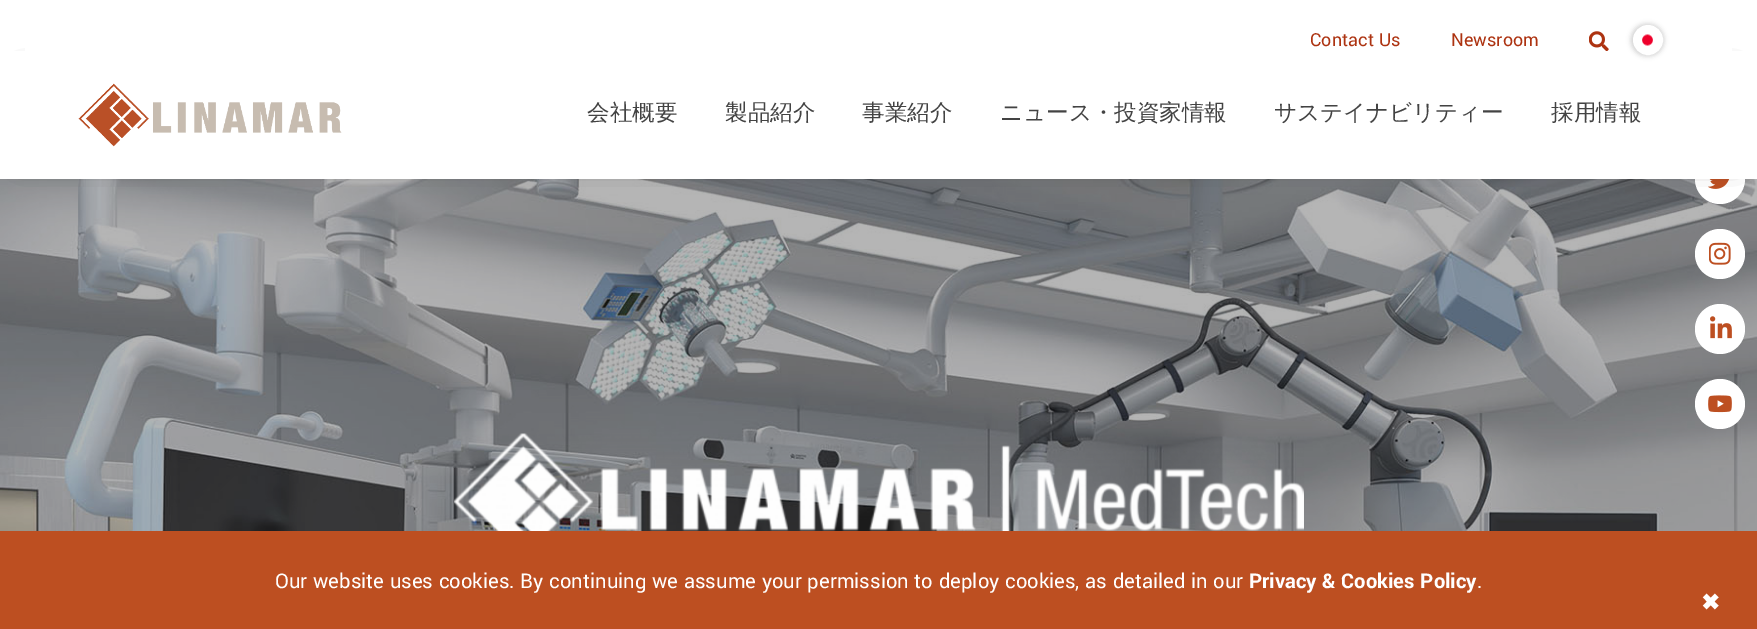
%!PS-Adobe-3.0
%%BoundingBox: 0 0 1757 629
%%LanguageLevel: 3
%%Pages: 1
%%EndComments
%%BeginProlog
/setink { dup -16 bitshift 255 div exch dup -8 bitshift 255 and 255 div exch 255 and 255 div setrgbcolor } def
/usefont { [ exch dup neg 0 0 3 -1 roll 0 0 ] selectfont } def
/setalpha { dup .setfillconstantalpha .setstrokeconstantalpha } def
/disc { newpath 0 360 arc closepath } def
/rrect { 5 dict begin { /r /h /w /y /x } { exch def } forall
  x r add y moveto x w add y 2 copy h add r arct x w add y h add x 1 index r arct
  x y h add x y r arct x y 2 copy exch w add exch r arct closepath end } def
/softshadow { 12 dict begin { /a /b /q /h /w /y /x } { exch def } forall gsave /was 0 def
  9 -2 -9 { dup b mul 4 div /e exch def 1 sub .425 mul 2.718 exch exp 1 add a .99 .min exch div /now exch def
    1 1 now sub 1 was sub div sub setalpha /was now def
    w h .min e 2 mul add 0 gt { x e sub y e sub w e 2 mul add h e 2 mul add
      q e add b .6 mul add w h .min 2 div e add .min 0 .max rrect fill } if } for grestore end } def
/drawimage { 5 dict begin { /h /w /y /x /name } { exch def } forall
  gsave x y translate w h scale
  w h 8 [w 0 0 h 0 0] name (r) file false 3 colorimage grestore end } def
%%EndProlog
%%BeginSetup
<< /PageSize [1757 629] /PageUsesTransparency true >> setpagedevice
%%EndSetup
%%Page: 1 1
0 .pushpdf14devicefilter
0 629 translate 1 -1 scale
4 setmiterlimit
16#FFFFFF setink
0 0 1757 629 rectfill
(img4.raw) 0 179 1757 352 drawimage
16#808080 setink
1698 156 47 48 23.5 6 0.22 softshadow
16#FFFFFF setink
1720 179 25 disc fill
(img6.raw) 1708 179 22 10 drawimage
16#3B3734 setink
21 75 1715 85 0 12 1 softshadow
16#FFFFFF setink
25 48 1707 3 rectfill
/Yantramanav-Regular 20 usefont
16#AD3311 setink
1310 46 moveto (Contact Us) show
1451 46 moveto (Newsroom) show
(img1.raw) 1589 31 20 20 drawimage
(img2.raw) 1642 34 11 12 drawimage
16#FFFFFF setink
0 51 1757 128 rectfill
gsave
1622 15 moveto 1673 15 lineto 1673 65 lineto 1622 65 lineto closepath 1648 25 moveto 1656.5 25 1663 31.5 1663 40 curveto 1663 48.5 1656.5 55 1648 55 curveto 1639.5 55 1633 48.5 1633 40 curveto 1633 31.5 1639.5 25 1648 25 curveto closepath eoclip newpath
16#000000 setink
1631 24 33 32 16 2.5 0.18 softshadow
grestore
3 setlinewidth
1648 40 13.5 disc stroke
(img3.raw) 78 83 264 64 drawimage
/WenQuanYiZenHei-Medium 22.5 usefont
16#434343 setink
[
    [(会社概要) 587 120]
    [(製品紹介) 725 120]
    [(事業紹介) 862 120]
    [(ニュース・投資家情報) 1000 120]
    [(サステイナビリティー) 1274 120]
    [(採用情報) 1551 120]
] { aload pop moveto show } forall
(img5.raw) 454 433 850 98 drawimage
16#FFFFFF setink
1720 254 25 disc fill
(img7.raw) 1709 242 22 23 drawimage
1720 329 25 disc fill
(img8.raw) 1710 316 22 23 drawimage
1720 404 25 disc fill
(img9.raw) 1708 395 24 18 drawimage
16#BD4F21 setink
0 531 1757 98 rectfill
/Yantramanav-Regular 22.5 usefont
16#FFFFFF setink
275 588 moveto (Our website uses cookies. By continuing we assume your permission to deploy cookies, as detailed in our) show
/Yantramanav-Bold 22.5 usefont
1249 588 moveto (Privacy & Cookies Policy) show
/Yantramanav-Regular 22.5 usefont
1477 588 moveto (.) show
/DejaVuSans-Bold 22.5 usefont
1701 610 moveto (✖) show
.poppdf14devicefilter showpage
%%EOF
